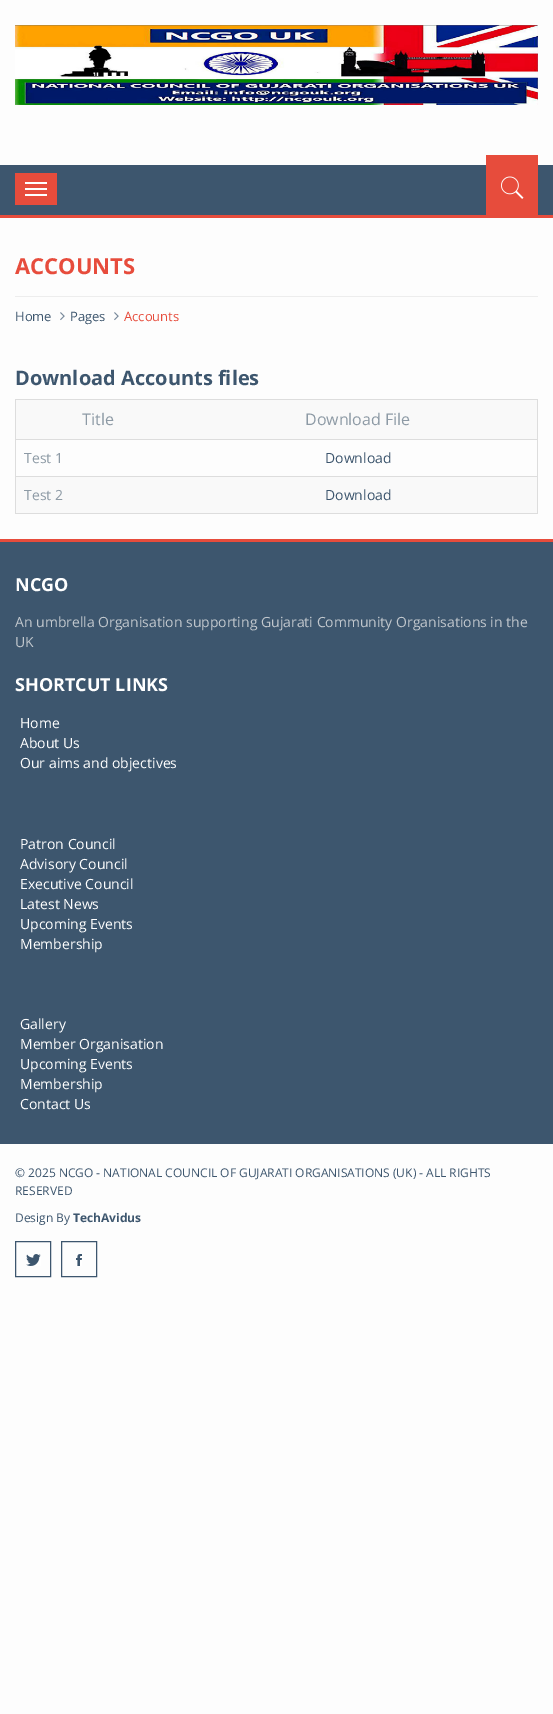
%!PS-Adobe-3.0
%%BoundingBox: 0 0 553 1714
%%LanguageLevel: 3
%%Pages: 1
%%EndComments
%%BeginProlog
/setink { dup -16 bitshift 255 div exch dup -8 bitshift 255 and 255 div exch 255 and 255 div setrgbcolor } def
/usefont { [ exch dup neg 0 0 3 -1 roll 0 0 ] selectfont } def
/drawimage { 5 dict begin { /h /w /y /x /name } { exch def } forall
  gsave x y translate w h scale
  w h 8 [w 0 0 h 0 0] name (r) file false 3 colorimage grestore end } def
%%EndProlog
%%BeginSetup
<< /PageSize [553 1714] >> setpagedevice
%%EndSetup
%%Page: 1 1
0 1714 translate 1 -1 scale
4 setmiterlimit
16#FDFDFD setink
0 0 553 1714 rectfill
(img1.raw) 15 25 523 80 drawimage
[
    [0 165 553 50 16#3D566E]
    [0 215 553 3 16#E74C3C]
    [15 173 42 32 16#E74C3C]
    [25 182 22 2 16#FFFFFF]
    [25 188 22 2 16#FFFFFF]
    [25 194 22 2 16#FFFFFF]
    [486 155 52 60 16#E74C3C]
] { aload pop setink rectfill } forall
(img2.raw) 501 176 23 23 drawimage
16#EDEDED setink
15 296 523 1 rectfill
/OpenSans-Bold 22 usefont
16#E74C3C setink
15 274 moveto (ACCOUNTS) show
/OpenSans-Regular 13 usefont
16#3D566E setink
15 321 moveto (Home) show
(img3.raw) 60 312 5 9 drawimage
70 321 moveto (Pages) show
(img3.raw) 114 312 5 9 drawimage
16#E74C3C setink
124 321 moveto (Accounts) show
/OpenSans-Bold 20 usefont
16#3D566E setink
15 385 moveto (Download Accounts files) show
[
    [15 399 523 1 16#DDDDDD]
    [537 399 1 115 16#DDDDDD]
    [15 513 523 1 16#DDDDDD]
    [15 399 1 115 16#DDDDDD]
    [16 400 521 39 16#F9F9F9]
] { aload pop setink rectfill } forall
/OpenSans-Regular 16 usefont
16#8D9AA5 setink
82 425 moveto (Title) show
305 425 moveto (Download File) show
/OpenSans-Regular 14 usefont
24 463 moveto (Test 1) show
16#DDDDDD setink
15 439 523 1 rectfill
16#3D566E setink
325 463 moveto (Download) show
16#F9F9F9 setink
16 477 521 36 rectfill
16#8D9AA5 setink
24 500 moveto (Test 2) show
16#DDDDDD setink
15 476 523 1 rectfill
16#3D566E setink
325 500 moveto (Download) show
0 542 553 602 rectfill
16#E74C3C setink
0 539 553 3 rectfill
/OpenSans-Bold 18 usefont
16#FFFFFF setink
15 591 moveto (NCGO) show
/OpenSans-Regular 14 usefont
16#C1C7CD setink
15 627 moveto (An umbrella Organisation supporting Gujarati Community Organisations in the) show
15 647 moveto (UK) show
/OpenSans-Bold 18 usefont
16#FFFFFF setink
15 691 moveto (SHORTCUT LINKS) show
/OpenSans-Regular 14 usefont
[
    [(Home) 20 728]
    [(About Us) 20 748]
    [(Our aims and objectives) 20 768]
    [(Patron Council) 20 849]
    [(Advisory Council) 20 869]
    [(Executive Council) 20 889]
    [(Latest News) 20 909]
    [(Upcoming Events) 20 929]
    [(Membership) 20 949]
    [(Gallery) 20 1029]
    [(Member Organisation) 20 1049]
    [(Upcoming Events) 20 1069]
    [(Membership) 20 1089]
    [(Contact Us) 20 1109]
] { aload pop moveto show } forall
/OpenSans-Regular 12 usefont
16#3D566E setink
[
    [(© 2025 NCGO - NATIONAL COUNCIL OF GUJARATI ORGANISATIONS \(UK\) - ALL RIGHTS) 15 1177]
    [(RESERVED) 15 1195]
    [(Design By) 15 1222]
] { aload pop moveto show } forall
/OpenSans-Bold 12 usefont
73 1222 moveto (TechAvidus) show
15.5 1241.5 35 35 rectstroke
(img4.raw) 26 1254 15 12 drawimage
61.5 1241.5 35 35 rectstroke
(img5.raw) 76 1254 6 12 drawimage
showpage
%%EOF
